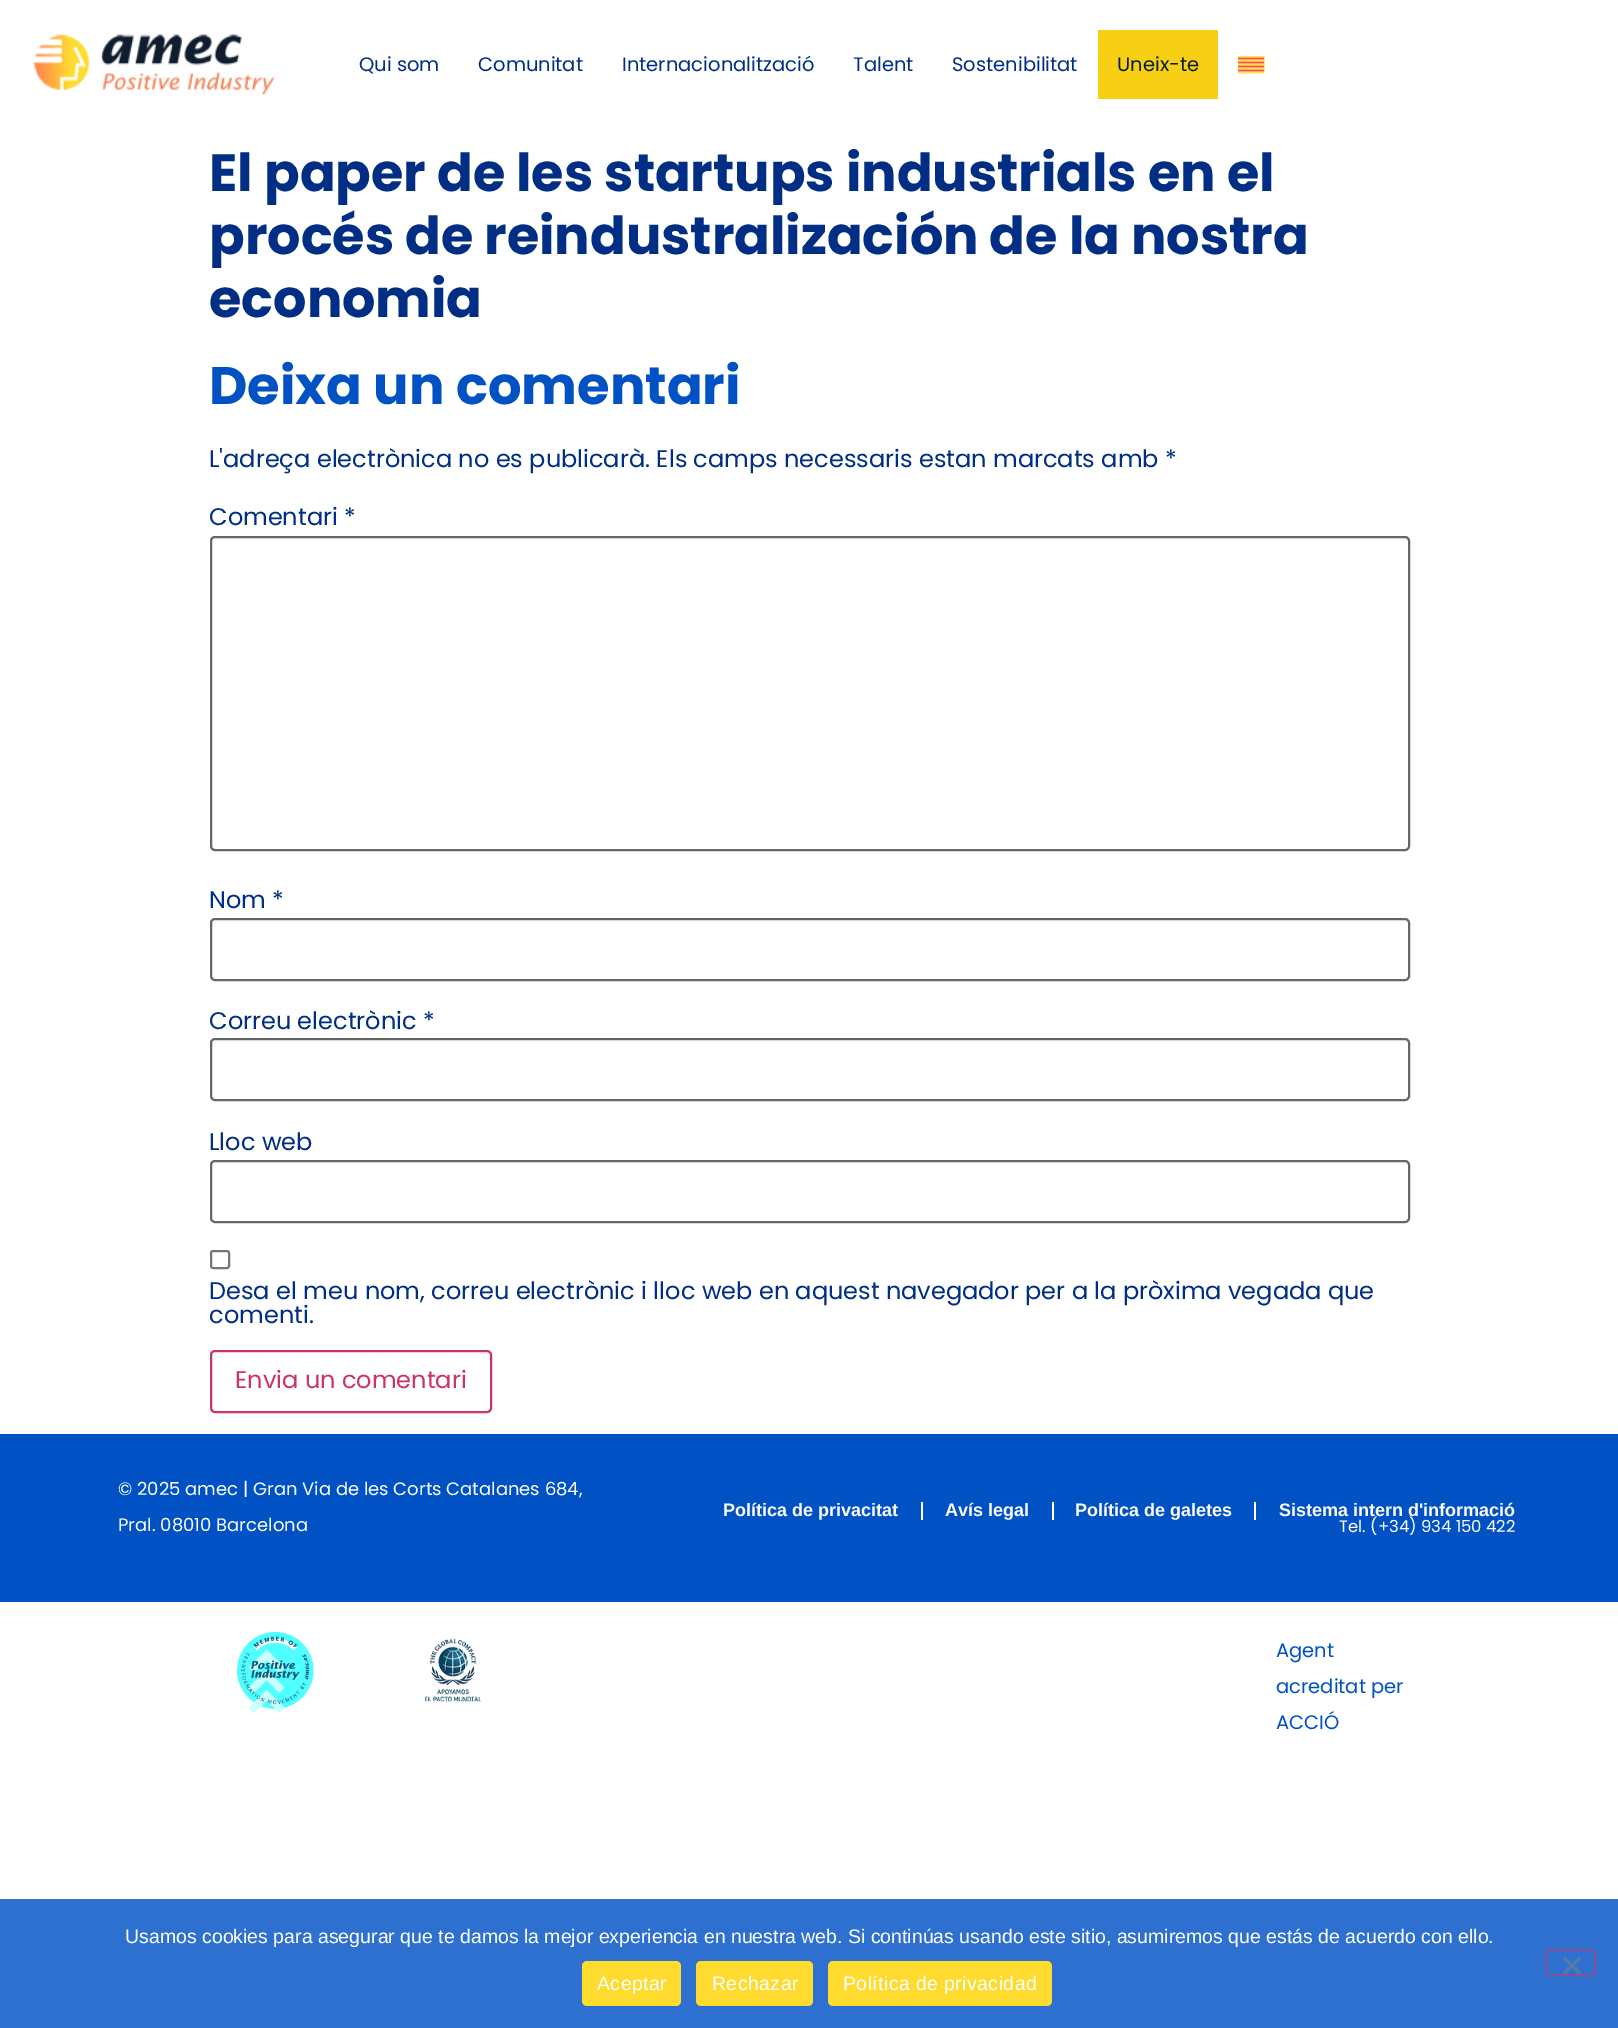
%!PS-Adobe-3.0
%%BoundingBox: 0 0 1618 2028
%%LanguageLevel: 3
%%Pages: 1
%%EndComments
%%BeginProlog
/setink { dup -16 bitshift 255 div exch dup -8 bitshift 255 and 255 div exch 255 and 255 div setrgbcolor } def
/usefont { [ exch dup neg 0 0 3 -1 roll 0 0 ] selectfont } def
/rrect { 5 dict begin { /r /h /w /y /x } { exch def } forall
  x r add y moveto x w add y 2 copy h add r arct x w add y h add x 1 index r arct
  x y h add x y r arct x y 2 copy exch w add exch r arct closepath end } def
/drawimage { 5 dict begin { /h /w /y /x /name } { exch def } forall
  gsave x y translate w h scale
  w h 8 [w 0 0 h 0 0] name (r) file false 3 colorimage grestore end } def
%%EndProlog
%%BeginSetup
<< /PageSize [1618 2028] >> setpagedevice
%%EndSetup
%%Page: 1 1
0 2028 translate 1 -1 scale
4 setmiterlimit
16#FFFFFF setink
0 0 1618 2028 rectfill
(img1.raw) 33 34 243 61 drawimage
/Poppins-Regular 19.5 usefont
16#002E84 setink
[
    [(Qui som) 359 71]
    [(Comunitat) 478 71]
    [(Internacionalització) 622 71]
    [(Talent) 853 71]
    [(Sostenibilitat) 952 71]
] { aload pop moveto show } forall
16#F7CF14 setink
1098 30 120 69 rectfill
16#091D31 setink
1117 71 moveto (Uneix-te) show
(img2.raw) 1238 56 27 18 drawimage
/Poppins-Bold 52.5 usefont
16#002E84 setink
[
    [(El paper de les startups industrials en el) 209 191]
    [(procés de reindustralización de la nostra) 209 254]
    [(economia) 209 317]
] { aload pop moveto show } forall
/Poppins-Bold 52.75 usefont
16#0051C4 setink
209 404 moveto (Deixa un comentari) show
/Poppins-Regular 24 usefont
16#002E84 setink
209 467 moveto (L'adreça electrònica no es publicarà. Els camps necessaris estan marcats amb *) show
209 525 moveto (Comentari *) show
16#666666 setink
2 setlinewidth
211 537 1198 313 4 rrect stroke
16#002E84 setink
209 908 moveto (Nom *) show
16#666666 setink
211 919 1198 61 4 rrect stroke
16#002E84 setink
209 1029 moveto (Correu electrònic *) show
16#666666 setink
211 1039 1198 61 4 rrect stroke
16#002E84 setink
209 1150 moveto (Lloc web) show
16#666666 setink
211 1161 1198 61 4 rrect stroke
16#767676 setink
211 1251 18 17 2 rrect stroke
16#002E84 setink
209 1299 moveto (Desa el meu nom, correu electrònic i lloc web en aquest navegador per a la pròxima vegada que) show
209 1323 moveto (comenti.) show
16#CC3366 setink
211 1351 280 61 4 rrect stroke
235 1388 moveto (Envia un comentari) show
16#0051C4 setink
0 1434 1618 168 rectfill
/Poppins-Regular 18 usefont
16#FFFFFF setink
118 1495 moveto (© 2025 amec | Gran Via de les Corts Catalanes 684,) show
118 1531 moveto (Pral. 08010 Barcelona) show
921 1502 2 18 rectfill
/LiberationSans-Bold 18 usefont
723 1516 moveto (Política de privacitat) show
1052 1502 2 18 rectfill
945 1516 moveto (Avís legal) show
1075 1516 moveto (Política de galetes) show
1254 1502 2 18 rectfill
1279 1516 moveto (Sistema intern d'informació) show
/Poppins-Regular 16.5 usefont
1339 1532 moveto (Tel. \(+34\) 934 150 422) show
(img3.raw) 237 1632 77 81 drawimage
(img4.raw) 425 1639 56 63 drawimage
/Poppins-Regular 19.5 usefont
16#0051C4 setink
[
    [(Agent) 1276 1657]
    [(acreditat per) 1276 1693]
    [(ACCIÓ) 1276 1729]
] { aload pop moveto show } forall
16#2E70CF setink
0 1899 1618 129 rectfill
/LiberationSans-Regular 19.5 usefont
16#FFFFFF setink
125 1943 moveto (Usamos cookies para asegurar que te damos la mejor experiencia en nuestra web. Si continúas usando este sitio, asumiremos que estás de acuerdo con ello.) show
16#7D529B setink
1546 1950 49 25 4 rrect stroke
16#5778A8 setink
1579 1956.5 moveto 1581 1959 lineto 1565 1975 lineto 1563 1972.5 lineto closepath fill
1563 1959 moveto 1565 1956.5 lineto 1581 1972.5 lineto 1579 1975 lineto closepath fill
16#FFDA2F setink
582 1961 99 45 5 rrect fill
16#FFFFFF setink
597 1990 moveto 0.4 0 (Aceptar) ashow
16#FFDA2F setink
696 1961 117 45 5 rrect fill
16#FFFFFF setink
712 1990 moveto 0.4 0 (Rechazar) ashow
16#FFDA2F setink
828 1961 224 45 5 rrect fill
16#FFFFFF setink
843 1990 moveto 0.4 0 (Política de privacidad) ashow
showpage
%%EOF
